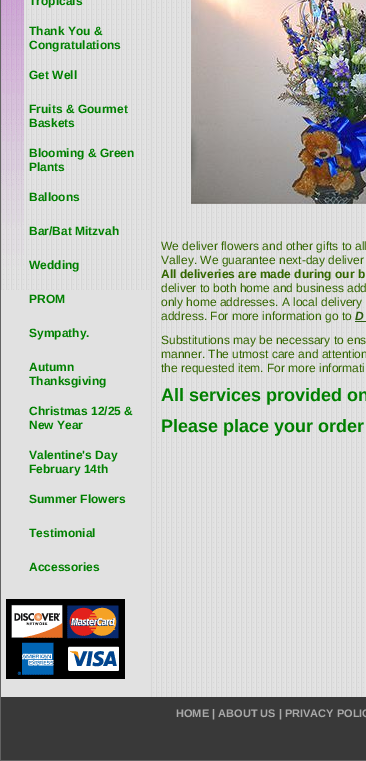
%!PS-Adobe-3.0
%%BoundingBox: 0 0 366 761
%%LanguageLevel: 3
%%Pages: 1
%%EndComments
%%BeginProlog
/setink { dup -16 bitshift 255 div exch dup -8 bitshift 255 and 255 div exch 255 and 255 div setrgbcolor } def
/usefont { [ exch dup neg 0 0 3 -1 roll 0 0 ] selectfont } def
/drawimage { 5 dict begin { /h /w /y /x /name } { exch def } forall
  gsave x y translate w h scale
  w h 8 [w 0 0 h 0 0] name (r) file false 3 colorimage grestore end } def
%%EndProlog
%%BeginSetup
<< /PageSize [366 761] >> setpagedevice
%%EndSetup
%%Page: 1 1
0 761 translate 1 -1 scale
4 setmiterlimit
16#FFFFFF setink
0 0 366 761 rectfill
16#626262 setink
0.5 -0.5 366 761 rectstroke
(img1.raw) 151 0 215 697 drawimage
16#E1E1E1 setink
1 0 150 697 rectfill
(img2.raw) 1 0 148 290 drawimage
/LiberationSans-Bold 12 usefont
16#008000 setink
[
    [(Tropicals) 29 5]
    [(Thank You &) 29 35]
    [(Congratulations) 29 49]
    [(Get Well) 29 79]
    [(Fruits & Gourmet) 29 113]
    [(Baskets) 29 127]
    [(Blooming & Green) 29 157]
    [(Plants) 29 171]
    [(Balloons) 29 201]
    [(Bar/Bat Mitzvah) 29 235]
    [(Wedding) 29 269]
    [(PROM) 29 303]
    [(Sympathy.) 29 337]
    [(Autumn) 29 371]
    [(Thanksgiving) 29 385]
    [(Christmas 12/25 &) 29 415]
    [(New Year) 29 429]
    [(Valentine's Day) 29 459]
    [(February 14th) 29 473]
    [(Summer Flowers) 29 503]
    [(Testimonial) 29 537]
    [(Accessories) 29 571]
] { aload pop moveto show } forall
(img3.raw) 6 599 119 80 drawimage
(img4.raw) 191 0 175 204 drawimage
/LiberationSans-Regular 12 usefont
16#336600 setink
161 250 moveto (We deliver flowers and other gifts to all) show
161 264 moveto (Valley. We guarantee next-day deliver) show
/LiberationSans-Bold 12 usefont
161 278 moveto (All deliveries are made during our b) show
/LiberationSans-Regular 12 usefont
[
    [(deliver to both home and business add) 161 292]
    [(only home addresses. A local delivery) 161 306]
    [(address. For more information go to) 161 320]
] { aload pop moveto show } forall
/LiberationSans-BoldItalic 12 usefont
16#2E5C10 setink
355 320 moveto (D) show
355 321 11 1 rectfill
/LiberationSans-Regular 12 usefont
16#336600 setink
[
    [(Substitutions may be necessary to ens) 161 344]
    [(manner. The utmost care and attention) 161 358]
    [(the requested item. For more informati) 161 372]
] { aload pop moveto show } forall
/LiberationSans-Bold 18 usefont
16#008000 setink
161 401 moveto (All services provided on) show
161 432 moveto (Please place your order) show
16#393939 setink
1 697 365 63 rectfill
/LiberationSans-Bold 11 usefont
16#A9A9A9 setink
176 717 moveto (HOME | ABOUT US | PRIVACY POLIC) show
showpage
%%EOF
